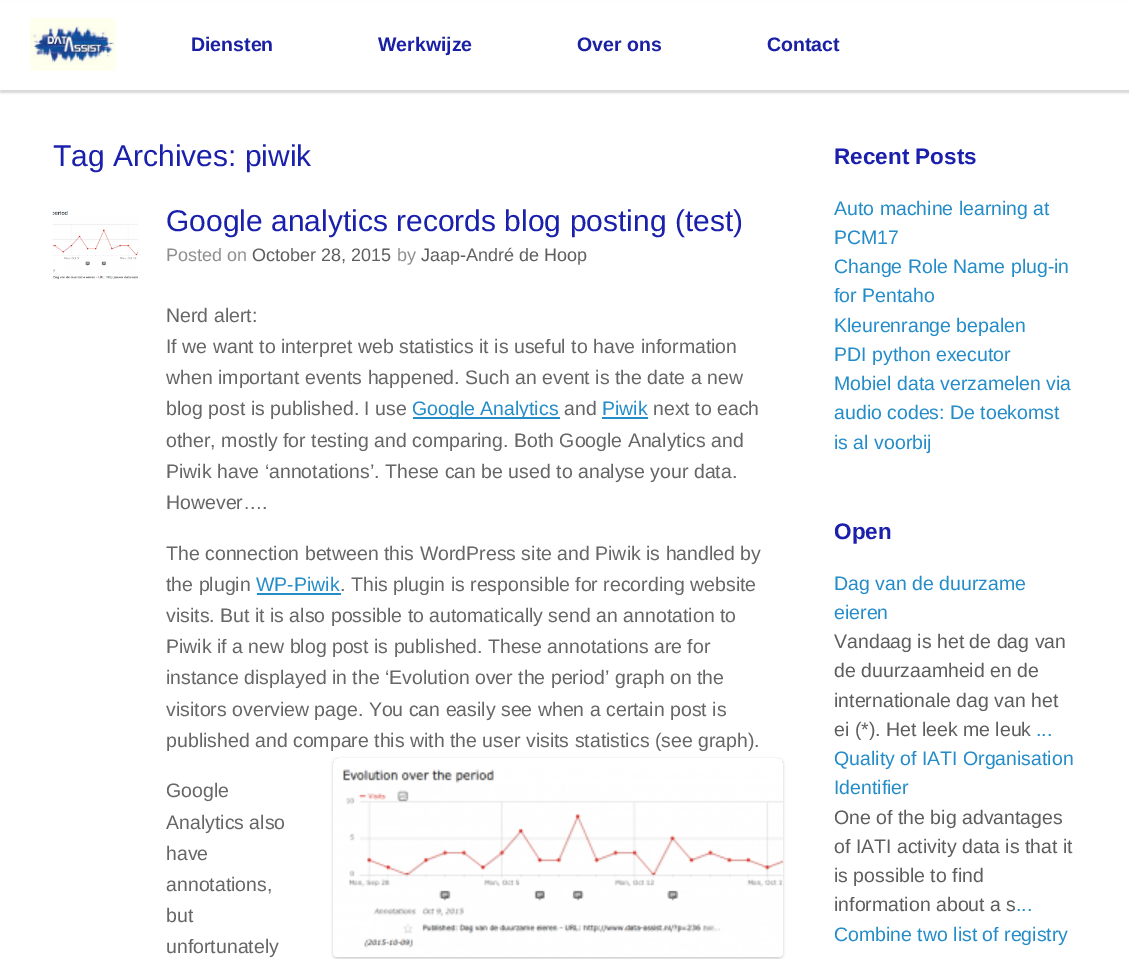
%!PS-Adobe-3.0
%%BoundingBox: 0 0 1129 959
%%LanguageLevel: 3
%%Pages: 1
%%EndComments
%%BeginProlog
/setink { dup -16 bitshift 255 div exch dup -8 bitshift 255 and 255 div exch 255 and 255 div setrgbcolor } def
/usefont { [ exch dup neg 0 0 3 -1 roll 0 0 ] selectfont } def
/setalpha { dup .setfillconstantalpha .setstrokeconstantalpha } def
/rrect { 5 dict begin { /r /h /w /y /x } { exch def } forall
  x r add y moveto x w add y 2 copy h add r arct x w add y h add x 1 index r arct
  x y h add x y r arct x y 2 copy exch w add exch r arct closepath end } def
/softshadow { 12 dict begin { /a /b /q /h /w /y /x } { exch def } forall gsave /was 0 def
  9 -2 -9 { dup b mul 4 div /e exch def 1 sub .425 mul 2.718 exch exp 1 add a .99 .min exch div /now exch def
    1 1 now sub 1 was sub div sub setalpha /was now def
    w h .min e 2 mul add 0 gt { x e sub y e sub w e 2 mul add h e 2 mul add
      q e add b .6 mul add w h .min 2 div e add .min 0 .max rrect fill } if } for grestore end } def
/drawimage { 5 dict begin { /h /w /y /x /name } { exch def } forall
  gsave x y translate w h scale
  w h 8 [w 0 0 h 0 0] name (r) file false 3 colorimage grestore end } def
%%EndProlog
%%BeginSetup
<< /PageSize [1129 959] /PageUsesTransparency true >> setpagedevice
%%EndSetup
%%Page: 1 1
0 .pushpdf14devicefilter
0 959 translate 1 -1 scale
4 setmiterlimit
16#FFFFFF setink
0 0 1129 959 rectfill
16#000000 setink
0 3 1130 90 0 1 0.15 softshadow
16#FFFFFF setink
0 2 1129 88 rectfill
(img1.raw) 30 18 86 53 drawimage
/LiberationSans-Bold 19.5 usefont
16#1A20A3 setink
[
    [(Diensten) 191 51]
    [(Werkwijze) 378 51]
    [(Over ons) 577 51]
    [(Contact) 767 51]
] { aload pop moveto show } forall
/LiberationSans-Regular 30 usefont
16#1A20AB setink
53 166 moveto (Tag Archives: piwik) show
(img2.raw) 52 210 86 70 drawimage
166 231 moveto (Google analytics records blog posting \(test\)) show
/LiberationSans-Regular 18 usefont
16#8F8F8F setink
166 261 moveto (Posted on) show
16#5E5E5E setink
252 261 moveto (October 28, 2015) show
16#8F8F8F setink
397 261 moveto (by) show
16#5E5E5E setink
421 261 moveto (Jaap-André de Hoop) show
/LiberationSans-Regular 19.5 usefont
16#666666 setink
[
    [(Nerd alert:) 166 322]
    [(If we want to interpret web statistics it is useful to have information) 166 353]
    [(when important events happened. Such an event is the date a new) 166 384]
    [(blog post is published. I use) 166 415]
] { aload pop moveto show } forall
16#248CC8 setink
413 417 147 2 rectfill
412 415 moveto (Google Analytics) show
16#666666 setink
564 415 moveto (and) show
16#248CC8 setink
602 415 moveto (Piwik) show
602 417 46 2 rectfill
16#666666 setink
[
    [(next to each) 653 415]
    [(other, mostly for testing and comparing. Both Google Analytics and) 166 447]
    [(Piwik have ‘annotations’. These can be used to analyse your data.) 166 478]
    [(However….) 166 509]
    [(The connection between this WordPress site and Piwik is handled by) 166 560]
    [(the plugin) 166 591]
] { aload pop moveto show } forall
16#248CC8 setink
256 591 moveto (WP-Piwik) show
257 593 84 2 rectfill
16#666666 setink
[
    [(. This plugin is responsible for recording website) 340 591]
    [(visits. But it is also possible to automatically send an annotation to) 166 622]
    [(Piwik if a new blog post is published. These annotations are for) 166 653]
    [(instance displayed in the ‘Evolution over the period’ graph on the) 166 684]
    [(visitors overview page. You can easily see when a certain post is) 166 716]
    [(published and compare this with the user visits statistics \(see graph\).) 166 747]
] { aload pop moveto show } forall
gsave
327 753 moveto 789 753 lineto 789 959 lineto 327 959 lineto closepath 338 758 moveto 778 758 lineto 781 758 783 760 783 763 curveto 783 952 lineto 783 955 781 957 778 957 curveto 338 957 lineto 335 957 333 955 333 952 curveto 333 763 lineto 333 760 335 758 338 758 curveto closepath eoclip newpath
16#000000 setink
333 759 450 200 5 1.5 0.18 softshadow
grestore
(img3.raw) 333 769 450 188 drawimage
[
    [(Google) 166 797]
    [(Analytics also) 166 829]
    [(have) 166 860]
    [(annotations,) 166 891]
    [(but) 166 922]
    [(unfortunately) 166 953]
] { aload pop moveto show } forall
/LiberationSans-Bold 22.5 usefont
16#1A20AB setink
834 164 moveto (Recent Posts) show
/LiberationSans-Regular 19.5 usefont
16#248CC8 setink
[
    [(Auto machine learning at) 834 215]
    [(PCM17) 834 244]
    [(Change Role Name plug-in) 834 273]
    [(for Pentaho) 834 302]
    [(Kleurenrange bepalen) 834 332]
    [(PDI python executor) 834 361]
    [(Mobiel data verzamelen via) 834 390]
    [(audio codes: De toekomst) 834 419]
    [(is al voorbij) 834 449]
] { aload pop moveto show } forall
/LiberationSans-Bold 22.5 usefont
16#1A20AB setink
834 539 moveto (Open) show
/LiberationSans-Regular 19.5 usefont
16#248CC8 setink
834 590 moveto (Dag van de duurzame) show
834 619 moveto (eieren) show
16#5E5E5E setink
[
    [(Vandaag is het de dag van) 834 648]
    [(de duurzaamheid en de) 834 677]
    [(internationale dag van het) 834 707]
    [(ei \(*\). Het leek me leuk) 834 736]
] { aload pop moveto show } forall
16#248CC8 setink
[
    [(...) 1036 736]
    [(Quality of IATI Organisation) 834 765]
    [(Identifier) 834 794]
] { aload pop moveto show } forall
16#5E5E5E setink
[
    [(One of the big advantages) 834 824]
    [(of IATI activity data is that it) 834 853]
    [(is possible to find) 834 882]
    [(information about a s) 834 911]
] { aload pop moveto show } forall
16#248CC8 setink
1016 911 moveto (...) show
834 941 moveto (Combine two list of registry) show
.poppdf14devicefilter showpage
%%EOF
